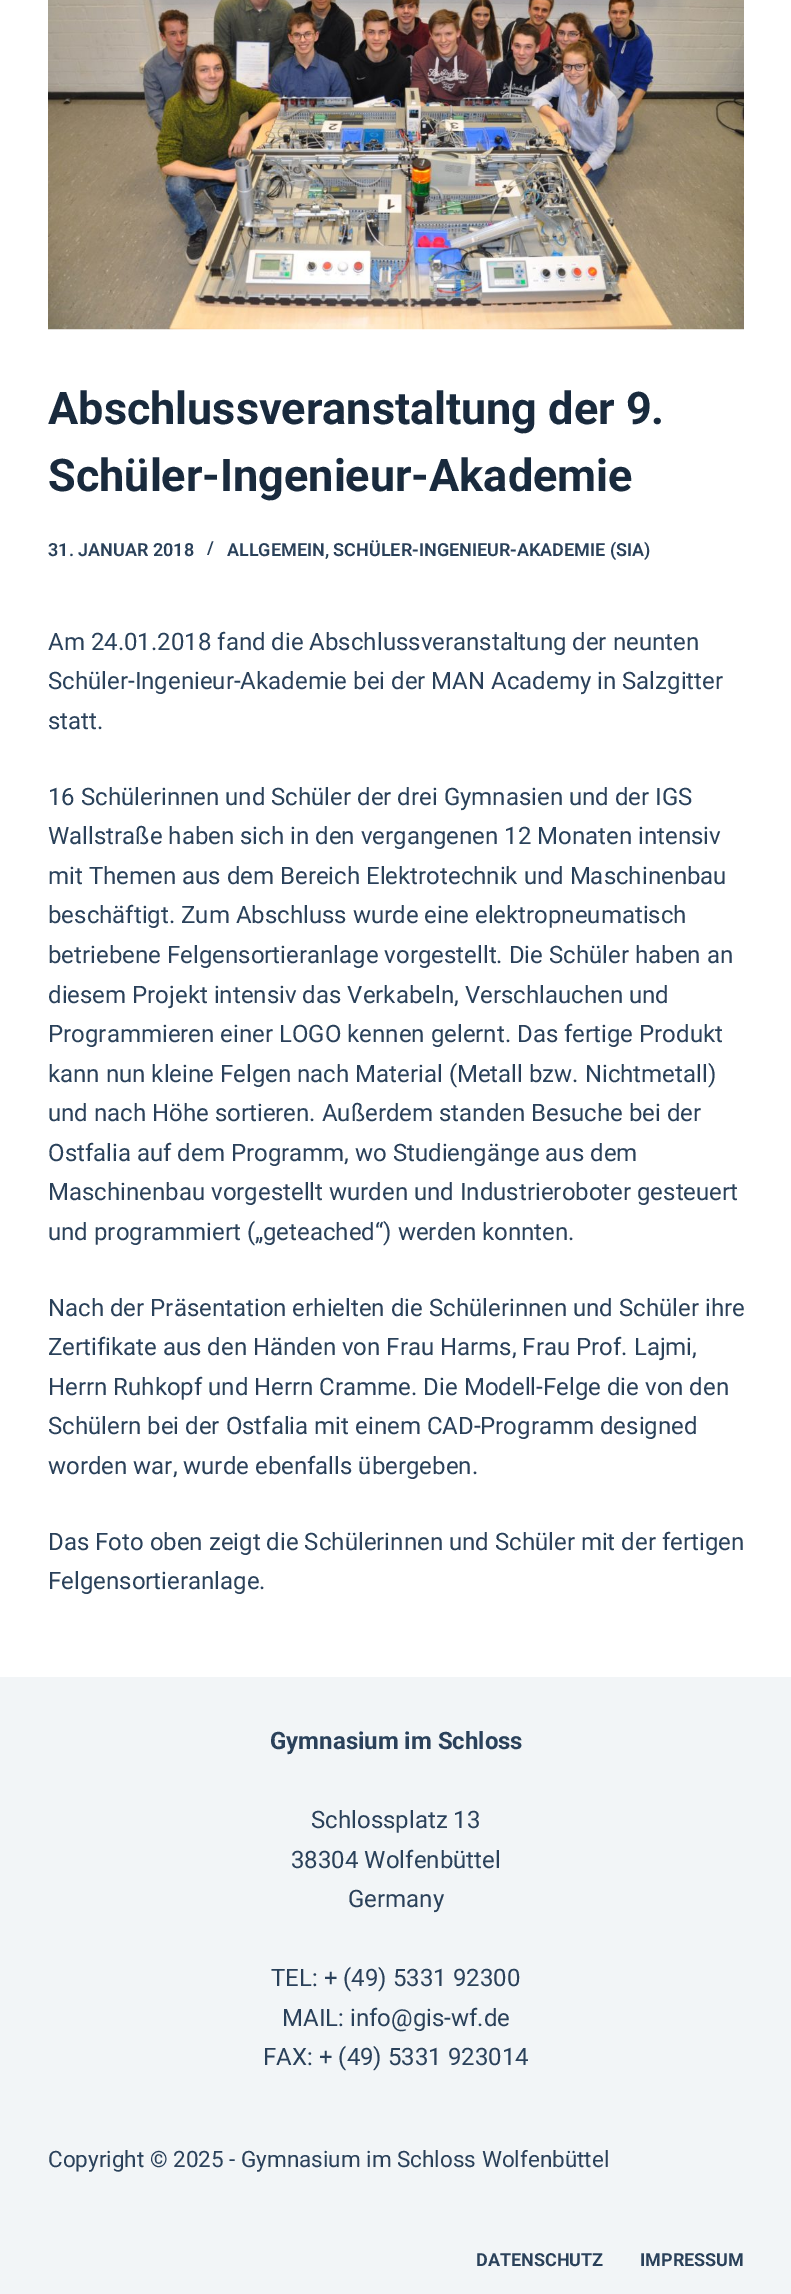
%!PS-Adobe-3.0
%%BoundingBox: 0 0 791 2294
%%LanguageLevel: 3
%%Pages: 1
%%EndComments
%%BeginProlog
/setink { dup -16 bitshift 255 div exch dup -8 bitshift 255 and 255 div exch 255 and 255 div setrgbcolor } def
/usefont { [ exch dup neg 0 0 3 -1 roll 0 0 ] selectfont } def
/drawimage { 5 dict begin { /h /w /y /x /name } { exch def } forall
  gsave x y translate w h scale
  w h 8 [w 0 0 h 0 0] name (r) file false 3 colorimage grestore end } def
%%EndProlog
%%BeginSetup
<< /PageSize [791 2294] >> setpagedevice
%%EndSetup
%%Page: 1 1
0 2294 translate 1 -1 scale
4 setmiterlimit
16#FFFFFF setink
0 0 791 2294 rectfill
(img1.raw) 48 0 696 330 drawimage
/Roboto-Bold 45 usefont
16#192A3D setink
48 424 moveto (Abschlussveranstaltung der 9.) show
48 491 moveto (Schüler-Ingenieur-Akademie) show
/Roboto-SemiBold 18 usefont
16#2A415A setink
[
    [(31. JANUAR 2018) 48 556]
    [(/) 207 554]
    [(ALLGEMEIN, SCHÜLER-INGENIEUR-AKADEMIE \(SIA\)) 227 556]
] { aload pop moveto show } forall
/Roboto-Regular 24 usefont
[
    [(Am 24.01.2018 fand die Abschlussveranstaltung der neunten) 48 650]
    [(Schüler-Ingenieur-Akademie bei der MAN Academy in Salzgitter) 48 689]
    [(statt.) 48 729]
    [(16 Schülerinnen und Schüler der drei Gymnasien und der IGS) 48 805]
    [(Wallstraße haben sich in den vergangenen 12 Monaten intensiv) 48 844]
    [(mit Themen aus dem Bereich Elektrotechnik und Maschinenbau) 48 884]
    [(beschäftigt. Zum Abschluss wurde eine elektropneumatisch) 48 923]
    [(betriebene Felgensortieranlage vorgestellt. Die Schüler haben an) 48 963]
    [(diesem Projekt intensiv das Verkabeln, Verschlauchen und) 48 1003]
    [(Programmieren einer LOGO kennen gelernt. Das fertige Produkt) 48 1042]
    [(kann nun kleine Felgen nach Material \(Metall bzw. Nichtmetall\)) 48 1082]
    [(und nach Höhe sortieren. Außerdem standen Besuche bei der) 48 1121]
    [(Ostfalia auf dem Programm, wo Studiengänge aus dem) 48 1161]
    [(Maschinenbau vorgestellt wurden und Industrieroboter gesteuert) 48 1200]
    [(und programmiert \(„geteached“\) werden konnten.) 48 1240]
    [(Nach der Präsentation erhielten die Schülerinnen und Schüler ihre) 48 1316]
    [(Zertifikate aus den Händen von Frau Harms, Frau Prof. Lajmi,) 48 1355]
    [(Herrn Ruhkopf und Herrn Cramme. Die Modell-Felge die von den) 48 1395]
    [(Schülern bei der Ostfalia mit einem CAD-Programm designed) 48 1434]
    [(worden war, wurde ebenfalls übergeben.) 48 1474]
    [(Das Foto oben zeigt die Schülerinnen und Schüler mit der fertigen) 48 1550]
    [(Felgensortieranlage.) 48 1589]
] { aload pop moveto show } forall
16#F2F5F7 setink
0 1677 791 617 rectfill
/Roboto-Bold 24 usefont
16#2A415A setink
270 1749 moveto (Gymnasium im Schloss) show
/Roboto-Regular 24 usefont
[
    [(Schlossplatz 13) 311 1828]
    [(38304 Wolfenbüttel) 291 1868]
    [(Germany) 348 1907]
    [(TEL: + \(49\) 5331 92300) 271 1986]
    [(MAIL: info@gis-wf.de) 282 2026]
    [(FAX: + \(49\) 5331 923014) 263 2065]
] { aload pop moveto show } forall
/Roboto-Regular 22.5 usefont
48 2167 moveto (Copyright © 2025 - Gymnasium im Schloss Wolfenbüttel) show
/Roboto-Bold 18 usefont
476 2266 moveto (DATENSCHUTZ) show
640 2266 moveto (IMPRESSUM) show
showpage
%%EOF
